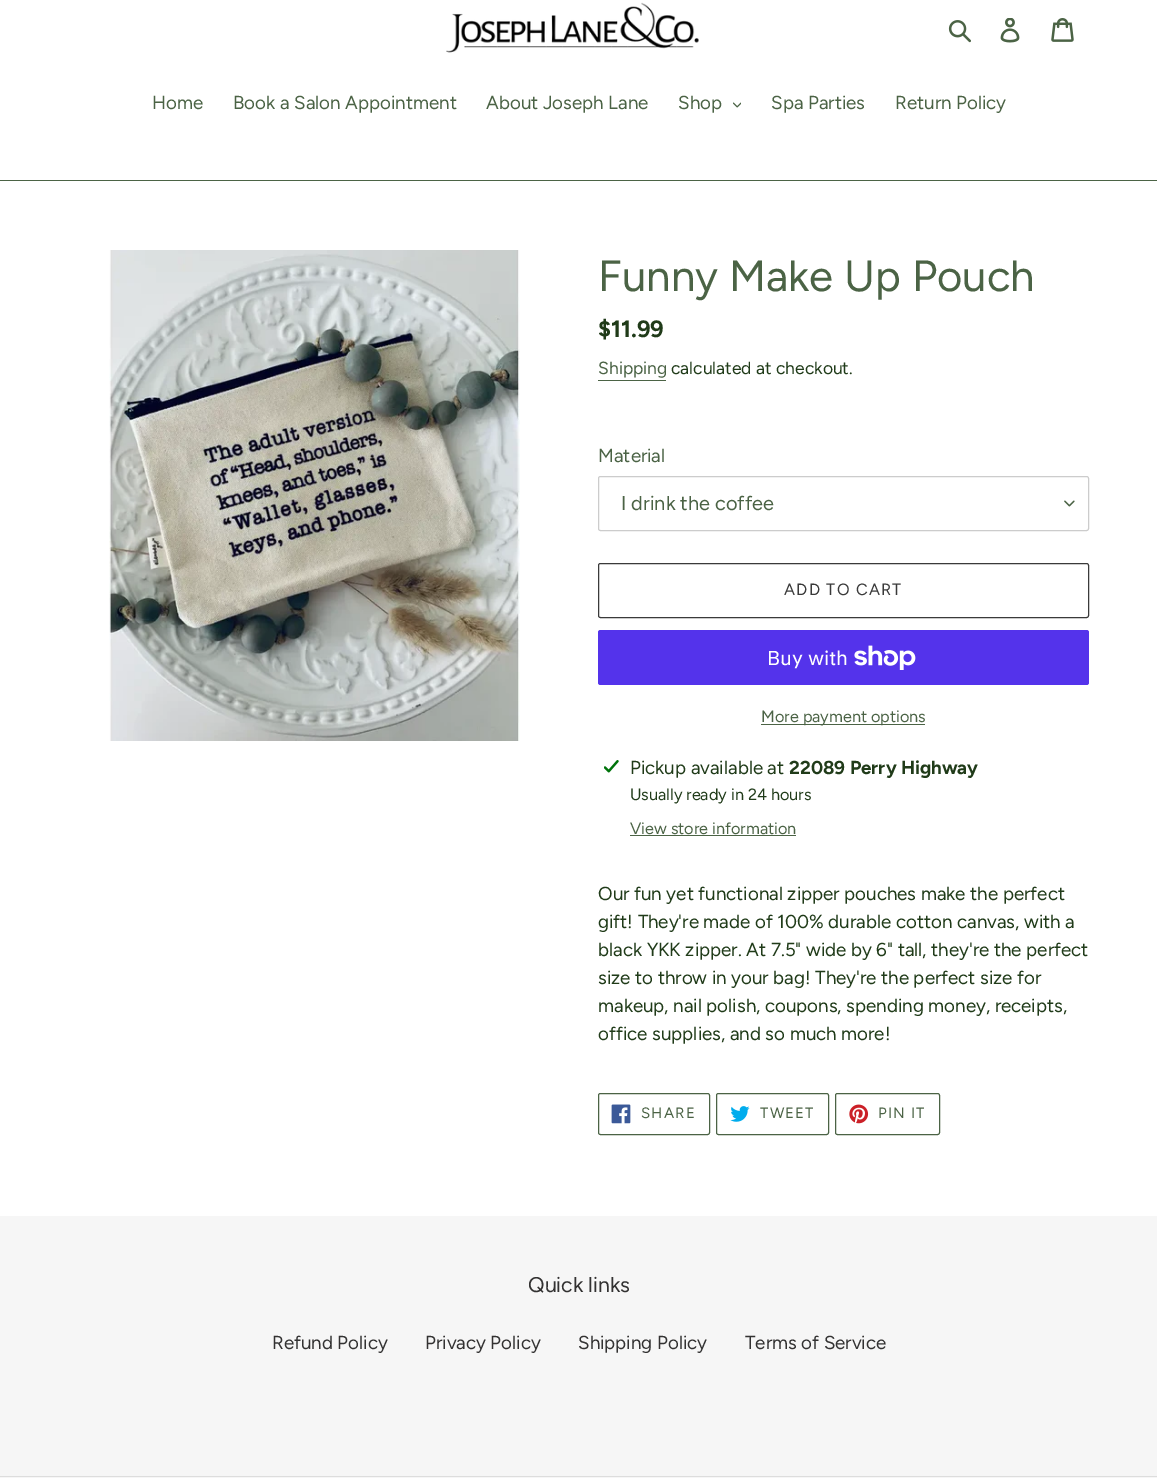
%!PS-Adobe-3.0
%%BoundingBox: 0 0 1157 1478
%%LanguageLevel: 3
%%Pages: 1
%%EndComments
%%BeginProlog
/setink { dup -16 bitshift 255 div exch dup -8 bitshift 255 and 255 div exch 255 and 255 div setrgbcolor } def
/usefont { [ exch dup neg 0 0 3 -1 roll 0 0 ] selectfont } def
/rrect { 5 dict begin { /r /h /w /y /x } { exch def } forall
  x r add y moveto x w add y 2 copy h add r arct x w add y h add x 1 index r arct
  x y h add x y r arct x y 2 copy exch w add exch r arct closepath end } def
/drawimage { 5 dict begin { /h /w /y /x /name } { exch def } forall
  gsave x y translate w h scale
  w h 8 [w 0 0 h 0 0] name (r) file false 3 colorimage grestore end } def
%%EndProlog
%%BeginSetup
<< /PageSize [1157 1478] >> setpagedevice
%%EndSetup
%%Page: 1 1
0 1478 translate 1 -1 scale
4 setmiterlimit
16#FFFFFF setink
0 0 1157 1478 rectfill
(img1.raw) 446 2 253 51 drawimage
(img2.raw) 948 20 23 23 drawimage
(img3.raw) 1000 18 20 25 drawimage
(img4.raw) 1051 18 23 24 drawimage
16#4B6345 setink
0 180 1157 1 rectfill
/Figtree-Regular 18.75 usefont
[
    [(Home) 152 109]
    [(Book a Salon Appointment) 233 109]
    [(About Joseph Lane) 486 109]
    [(Shop) 678 109]
] { aload pop moveto show } forall
(img5.raw) 733 102 8 6 drawimage
771 109 moveto (Spa Parties) show
895 109 moveto (Return Policy) show
(img6.raw) 109 250 411 491 drawimage
/Figtree-Regular 43.75 usefont
598 291 moveto (Funny Make Up Pouch) show
/Figtree-Bold 23.5 usefont
16#203B19 setink
598 337 moveto ($11.99) show
/Figtree-Regular 17.5 usefont
16#4B6345 setink
598 374 moveto (Shipping) show
598 380 68 1 rectfill
16#203B19 setink
671 374 moveto (calculated at checkout.) show
/Figtree-Regular 18.75 usefont
16#4B6345 setink
598 462 moveto (Material) show
(img7.raw) 1064 500 11 7 drawimage
16#CCCCCC setink
598.5 476.5 490 54 2 rrect stroke
/Figtree-Regular 20 usefont
16#4B6345 setink
621 510 moveto (I drink the coffee) show
16#3A3A3A setink
598.5 563.5 490 54 2 rrect stroke
/Figtree-Regular 16.25 usefont
784 595 moveto 1.25 0 (ADD TO CART) ashow
16#5433EB setink
598 630 491 55 2.5 rrect fill
/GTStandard-Regular 20 usefont
16#FFFFFF setink
767 665 moveto (Buy with) show
(img8.raw) 854 645 62 25 drawimage
16#4B6345 setink
761 724 164 1 rectfill
/Figtree-Regular 16.25 usefont
761 722 moveto (More payment options) show
(img9.raw) 604 760 15 13 drawimage
/Figtree-Regular 18.75 usefont
16#203B19 setink
630 774 moveto (Pickup available at) show
/Figtree-Bold 18.75 usefont
789 774 moveto (22089 Perry Highway) show
/Figtree-Regular 16.25 usefont
630 800 moveto (Usually ready in 24 hours) show
16#4B6345 setink
630 834 moveto (View store information) show
630 835 166 1 rectfill
/Figtree-Regular 18.75 usefont
16#203B19 setink
[
    [(Our fun yet functional zipper pouches make the perfect) 598 900]
    [(gift! They're made of 100% durable cotton canvas, with a) 598 928]
    [(black YKK zipper. At 7.5" wide by 6" tall, they're the perfect) 598 956]
    [(size to throw in your bag! They're the perfect size for) 598 984]
    [(makeup, nail polish, coupons, spending money, receipts,) 598 1012]
    [(office supplies, and so much more!) 598 1040]
] { aload pop moveto show } forall
16#4B6345 setink
598.5 1093.5 111 41 2 rrect stroke
(img10.raw) 611 1104 20 20 drawimage
/Figtree-Regular 15 usefont
641 1118 moveto 1.25 0 (SHARE) ashow
716.5 1093.5 112 41 2 rrect stroke
(img11.raw) 730 1106 20 16 drawimage
760 1118 moveto 1.25 0 (TWEET) ashow
835.5 1093.5 104 41 2 rrect stroke
(img12.raw) 849 1104 20 20 drawimage
878 1118 moveto 1.25 0 (PIN IT) ashow
16#F6F6F6 setink
0 1216 1157 262 rectfill
/Figtree-Regular 21.25 usefont
16#333232 setink
528 1292 moveto (Quick links) show
/Figtree-Regular 18.75 usefont
[
    [(Refund Policy) 272 1349]
    [(Privacy Policy) 425 1349]
    [(Shipping Policy) 578 1349]
    [(Terms of Service) 745 1349]
] { aload pop moveto show } forall
16#DDDDDD setink
0 1476 1157 1 rectfill
showpage
%%EOF
